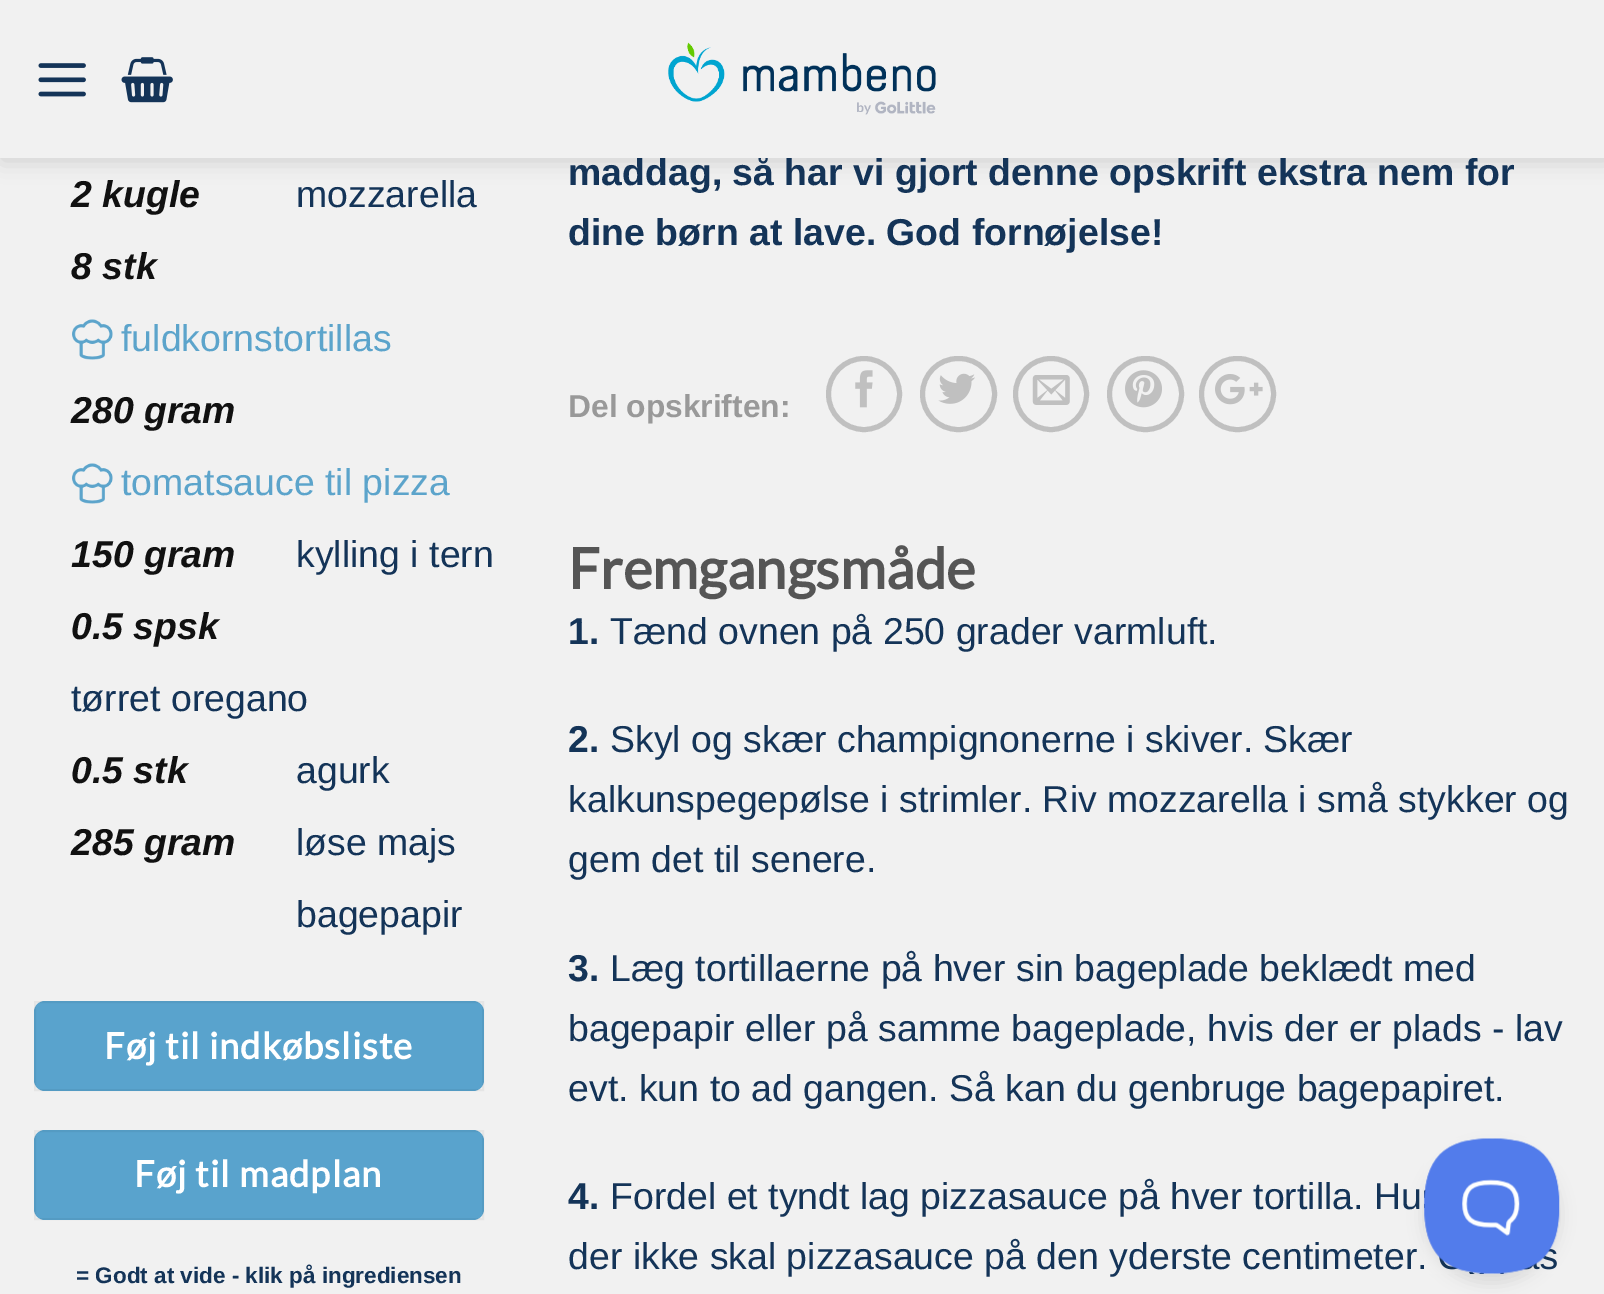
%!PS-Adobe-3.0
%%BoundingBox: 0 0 1604 1294
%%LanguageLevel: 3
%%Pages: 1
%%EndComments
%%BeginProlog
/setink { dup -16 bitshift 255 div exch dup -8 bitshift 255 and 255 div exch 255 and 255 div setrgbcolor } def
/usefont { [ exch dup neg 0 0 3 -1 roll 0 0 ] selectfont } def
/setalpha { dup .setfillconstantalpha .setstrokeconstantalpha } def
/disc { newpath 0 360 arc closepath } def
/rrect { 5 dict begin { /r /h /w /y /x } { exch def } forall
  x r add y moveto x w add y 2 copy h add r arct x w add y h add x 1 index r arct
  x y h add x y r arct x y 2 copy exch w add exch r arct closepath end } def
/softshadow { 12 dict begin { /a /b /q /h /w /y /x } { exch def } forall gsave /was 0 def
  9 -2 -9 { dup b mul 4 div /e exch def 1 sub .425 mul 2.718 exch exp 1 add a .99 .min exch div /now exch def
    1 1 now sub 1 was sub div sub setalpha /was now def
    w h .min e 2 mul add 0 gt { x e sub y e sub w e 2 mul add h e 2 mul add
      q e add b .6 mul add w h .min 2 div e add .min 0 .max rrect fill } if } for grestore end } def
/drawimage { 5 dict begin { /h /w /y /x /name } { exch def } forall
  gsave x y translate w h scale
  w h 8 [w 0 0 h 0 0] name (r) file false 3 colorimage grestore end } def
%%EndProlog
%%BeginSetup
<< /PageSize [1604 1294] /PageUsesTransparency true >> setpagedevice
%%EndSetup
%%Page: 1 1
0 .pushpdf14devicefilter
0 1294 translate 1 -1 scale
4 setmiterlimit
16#F1F1F1 setink
0 0 1604 1294 rectfill
16#000000 setink
2 2 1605 158 0 11 0.15 softshadow
/LiberationSans-Bold 37.45 usefont
16#143458 setink
568 185 moveto (maddag, så har vi gjort denne opskrift ekstra nem for) show
16#F1F1F1 setink
0 0 1604 158 rectfill
(img1.raw) 38 63 48 34 drawimage
(img2.raw) 121 57 52 46 drawimage
(img3.raw) 668 42 268 73 drawimage
/LiberationSans-BoldItalic 37.45 usefont
16#111111 setink
71 207 moveto (2 kugle) show
/LiberationSans-Regular 37.45 usefont
16#143458 setink
296 207 moveto (mozzarella) show
/LiberationSans-BoldItalic 37.45 usefont
16#111111 setink
71 279 moveto (8 stk) show
(img4.raw) 72 319 41 41 drawimage
/LiberationSans-Regular 37.45 usefont
16#5CA4CB setink
121 351 moveto (fuldkornstortillas) show
/LiberationSans-BoldItalic 37.45 usefont
16#111111 setink
71 423 moveto (280 gram) show
(img4.raw) 72 463 41 41 drawimage
/LiberationSans-Regular 37.45 usefont
16#5CA4CB setink
121 495 moveto (tomatsauce til pizza) show
/LiberationSans-BoldItalic 37.45 usefont
16#111111 setink
71 567 moveto (150 gram) show
/LiberationSans-Regular 37.45 usefont
16#143458 setink
296 567 moveto (kylling i tern) show
/LiberationSans-BoldItalic 37.45 usefont
16#111111 setink
71 639 moveto (0.5 spsk) show
/LiberationSans-Regular 37.45 usefont
16#143458 setink
71 711 moveto (tørret oregano) show
/LiberationSans-BoldItalic 37.45 usefont
16#111111 setink
71 783 moveto (0.5 stk) show
/LiberationSans-Regular 37.45 usefont
16#143458 setink
296 783 moveto (agurk) show
/LiberationSans-BoldItalic 37.45 usefont
16#111111 setink
71 855 moveto (285 gram) show
/LiberationSans-Regular 37.45 usefont
16#143458 setink
296 855 moveto (løse majs) show
296 927 moveto (bagepapir) show
16#59A3CD setink
34 1001 450 90 11 rrect fill
0.05 setalpha
16#000000 setink
2 setlinewidth
35 1002 448 88 rectstroke
/Lato-Bold 36.25 usefont
1 setalpha
16#FFFFFF setink
104 1059 moveto 1.1 0 (Føj til indkøbsliste) ashow
16#59A3CD setink
34 1130 450 90 11 rrect fill
0.05 setalpha
16#000000 setink
35 1131 448 88 rectstroke
1 setalpha
16#FFFFFF setink
134 1187 moveto 1.1 0 (Føj til madplan) ashow
/LiberationSans-Bold 22.5 usefont
16#143458 setink
76 1283 moveto (= Godt at vide - klik på ingrediensen) show
/LiberationSans-Bold 37.45 usefont
568 245 moveto (dine børn at lave. God fornøjelse!) show
/LiberationSans-Bold 31.75 usefont
16#999999 setink
568 417 moveto (Del opskriften:) show
16#C0C0C0 setink
5 setlinewidth
864 394 35.5 disc stroke
(img5.raw) 855 370 18 38 drawimage
922.5 358.5 72 71 35.5 rrect stroke
(img6.raw) 938 373 37 31 drawimage
1051 394 35.5 disc stroke
(img7.raw) 1032 375 38 30 drawimage
1109.5 358.5 72 71 35.5 rrect stroke
(img8.raw) 1125 370 37 38 drawimage
1201.5 358.5 72 71 35.5 rrect stroke
(img9.raw) 1215 374 48 31 drawimage
/Lato-Bold 56.25 usefont
16#555555 setink
568 589 moveto (Fremgangsmåde) show
/LiberationSans-Bold 37.45 usefont
16#143458 setink
568 644 moveto (1.) show
/LiberationSans-Regular 37.45 usefont
610 644 moveto (Tænd ovnen på 250 grader varmluft.) show
/LiberationSans-Bold 37.45 usefont
568 752 moveto (2.) show
/LiberationSans-Regular 37.45 usefont
[
    [(Skyl og skær champignonerne i skiver. Skær) 610 752]
    [(kalkunspegepølse i strimler. Riv mozzarella i små stykker og) 568 812]
    [(gem det til senere.) 568 872]
] { aload pop moveto show } forall
/LiberationSans-Bold 37.45 usefont
568 981 moveto (3.) show
/LiberationSans-Regular 37.45 usefont
[
    [(Læg tortillaerne på hver sin bageplade beklædt med) 610 981]
    [(bagepapir eller på samme bageplade, hvis der er plads - lav) 568 1041]
    [(evt. kun to ad gangen. Så kan du genbruge bagepapiret.) 568 1101]
] { aload pop moveto show } forall
/LiberationSans-Bold 37.45 usefont
568 1209 moveto (4.) show
/LiberationSans-Regular 37.45 usefont
610 1209 moveto (Fordel et tyndt lag pizzasauce på hver tortilla. Hu) show
568 1269 moveto (der ikke skal pizzasauce på den yderste centimeter.) show
16#000000 setink
1424 1148 135 135 67.5 8 0.1 softshadow
(img10.raw) 1424 1138 136 136 drawimage
.poppdf14devicefilter showpage
%%EOF
